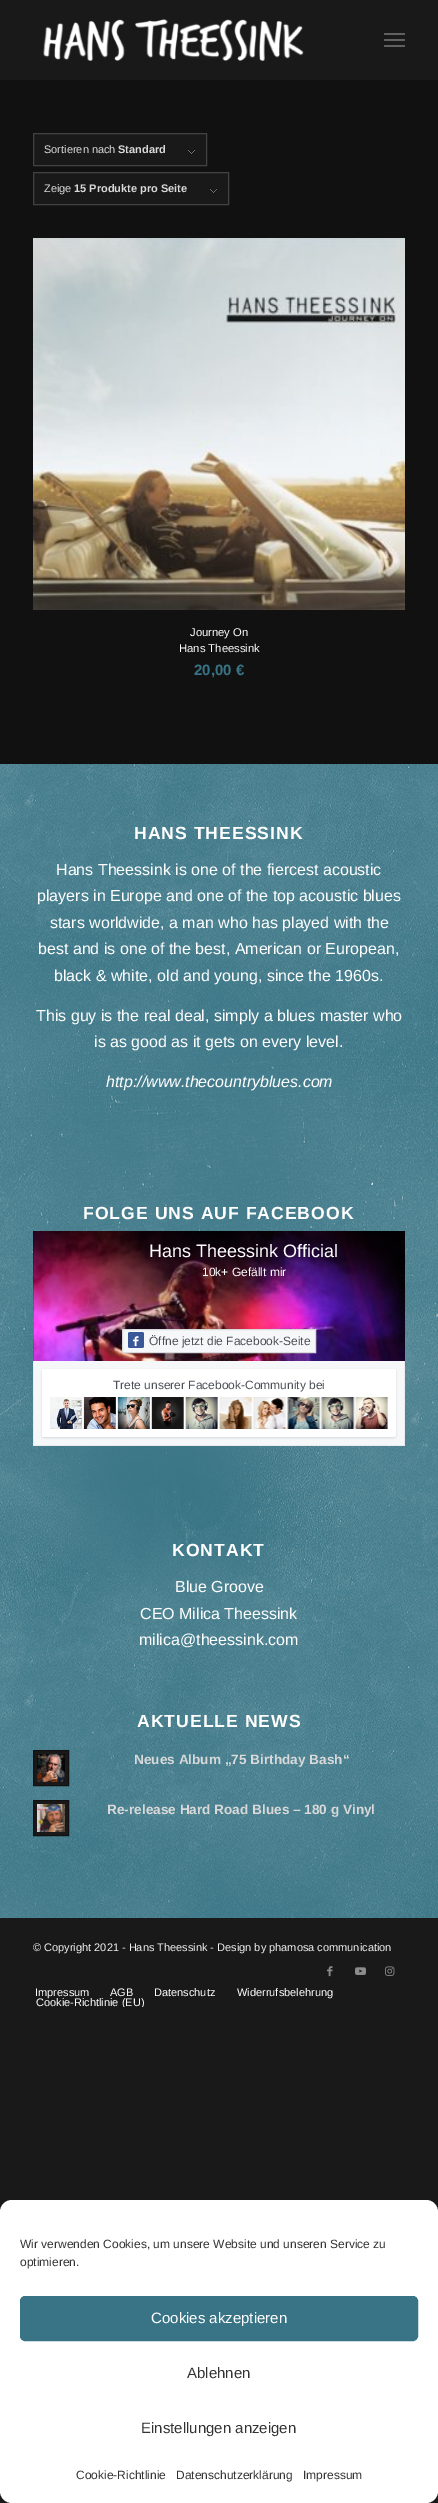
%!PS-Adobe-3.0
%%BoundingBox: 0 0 438 2503
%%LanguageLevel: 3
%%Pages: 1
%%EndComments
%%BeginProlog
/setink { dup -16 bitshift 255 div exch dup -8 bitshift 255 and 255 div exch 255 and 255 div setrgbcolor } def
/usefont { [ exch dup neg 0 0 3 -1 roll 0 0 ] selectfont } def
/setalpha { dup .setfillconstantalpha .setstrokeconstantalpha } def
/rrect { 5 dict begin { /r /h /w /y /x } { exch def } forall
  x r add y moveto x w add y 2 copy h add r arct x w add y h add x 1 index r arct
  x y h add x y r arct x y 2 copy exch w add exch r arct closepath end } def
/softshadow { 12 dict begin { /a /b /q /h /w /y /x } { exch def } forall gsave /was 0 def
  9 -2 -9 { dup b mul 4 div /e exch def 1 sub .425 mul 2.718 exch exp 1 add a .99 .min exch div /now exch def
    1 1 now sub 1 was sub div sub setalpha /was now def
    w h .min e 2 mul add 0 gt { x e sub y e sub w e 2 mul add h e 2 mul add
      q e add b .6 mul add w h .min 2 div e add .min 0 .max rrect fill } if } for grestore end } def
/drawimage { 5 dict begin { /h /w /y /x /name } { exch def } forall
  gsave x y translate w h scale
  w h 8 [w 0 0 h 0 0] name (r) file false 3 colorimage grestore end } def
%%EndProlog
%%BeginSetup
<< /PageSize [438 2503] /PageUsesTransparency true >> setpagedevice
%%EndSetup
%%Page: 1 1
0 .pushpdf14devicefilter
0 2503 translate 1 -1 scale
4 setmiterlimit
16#191919 setink
0 0 438 2503 rectfill
(img1.raw) 43 19 261 42 drawimage
16#616161 setink
384 39 21 2 1 rrect fill
384 33 21 2 1 rrect fill
384 45 21 2 1 rrect fill
16#111111 setink
0 80 438 684 rectfill
16#191919 setink
34 134 172 31 rectfill
(img2.raw) 188 149 7 5 drawimage
16#424242 setink
33.5 133.5 173 32 rectstroke
/LiberationSans-Regular 11 usefont
16#D9D9D9 setink
44 153 moveto (Sortieren nach) show
/LiberationSans-Bold 11 usefont
118 153 moveto (Standard) show
16#191919 setink
34 173 194 31 rectfill
(img2.raw) 210 188 7 5 drawimage
16#424242 setink
33.5 172.5 195 32 rectstroke
/LiberationSans-Regular 11 usefont
16#D9D9D9 setink
44 192 moveto (Zeige) show
/LiberationSans-Bold 11 usefont
74 192 moveto (15 Produkte pro Seite) show
(img3.raw) 33 238 372 372 drawimage
/LiberationSans-Regular 11.25 usefont
16#FFFFFF setink
190 636 moveto (Journey On) show
179 652 moveto (Hans Theessink) show
/LiberationSans-Bold 15 usefont
16#387485 setink
194 675 moveto (20,00 €) show
0 764 438 1154 rectfill
(img4.raw) 0 764 438 1154 drawimage
/LiberationSans-Bold 17.6 usefont
16#FFFFFF setink
134 839 moveto 1 0 (HANS THEESSINK) ashow
/LiberationSans-Regular 16 usefont
[
    [(Hans Theessink is one of the fiercest acoustic) 56 875]
    [(players in Europe and one of the top acoustic blues) 37 901]
    [(stars worldwide, a man who has played with the) 50 928]
    [(best and is one of the best, American or European,) 38 954]
    [(black & white, old and young, since the 1960s.) 54 981]
    [(This guy is the real deal, simply a blues master who) 36 1021]
    [(is as good as it gets on every level.) 94 1047]
] { aload pop moveto show } forall
/LiberationSans-Italic 16 usefont
106 1087 moveto (http://www.thecountryblues.com) show
/LiberationSans-Bold 17.6 usefont
83 1219 moveto 1 0 (FOLGE UNS AUF FACEBOOK) ashow
(img5.raw) 33 1231 372 130 drawimage
/LiberationSans-Regular 18 usefont
149 1257 moveto (Hans Theessink Official) show
/LiberationSans-Regular 12 usefont
202 1276 moveto (10k+ Gefällt mir) show
16#F6F7F9 setink
122.5 1329.5 moveto 315.5 1329.5 lineto 315.5 1352.5 lineto 122.5 1352.5 lineto closepath gsave fill grestore
16#D8D9DB setink
stroke
16#3A5797 setink
128 1332 16 16 2 rrect fill
(img6.raw) 133 1336 6 11 drawimage
16#4B4F56 setink
149 1345 moveto (Öffne jetzt die Facebook-Seite) show
[
    [34 1361 370 84 16#F6F7F9]
    [404 1361 1 85 16#E9EBEE]
    [33 1445 372 1 16#E9EBEE]
    [33 1361 1 85 16#E9EBEE]
] { aload pop setink rectfill } forall
16#000000 setink
42 1370 354 68 2 1 0.12 softshadow
16#FFFFFF setink
42 1369 354 68 2 rrect fill
16#4B4F56 setink
113 1389 moveto (Trete unserer Facebook-Community bei) show
(img7.raw) 50 1397 338 32 drawimage
/LiberationSans-Bold 17.6 usefont
16#FFFFFF setink
172 1556 moveto 1 0 (KONTAKT) ashow
/LiberationSans-Regular 16 usefont
[
    [(Blue Groove) 175 1592]
    [(CEO Milica Theessink) 140 1619]
    [(milica@theessink.com) 139 1645]
] { aload pop moveto show } forall
/LiberationSans-Bold 17.6 usefont
137 1727 moveto 1 0 (AKTUELLE NEWS) ashow
16#191919 setink
33.5 1750.5 moveto 68.5 1750.5 lineto 68.5 1785.5 lineto 33.5 1785.5 lineto closepath gsave fill grestore
16#111111 setink
stroke
(img8.raw) 37 1754 28 28 drawimage
/LiberationSans-Bold 13.6 usefont
16#D9D9D9 setink
134 1764 moveto (Neues Album „75 Birthday Bash“) show
16#191919 setink
33.5 1800.5 moveto 68.5 1800.5 lineto 68.5 1835.5 lineto 33.5 1835.5 lineto closepath gsave fill grestore
16#111111 setink
stroke
(img9.raw) 37 1804 28 28 drawimage
16#D9D9D9 setink
107 1814 moveto (Re-release Hard Road Blues – 180 g Vinyl) show
/LiberationSans-Regular 11 usefont
16#EEEEEE setink
33 1951 moveto (© Copyright 2021 - Hans Theessink - Design by phamosa communication) show
(img10.raw) 327 1966 6 11 drawimage
(img11.raw) 355 1967 11 8 drawimage
(img12.raw) 385 1966 10 10 drawimage
16#FFFFFF setink
[
    [(Impressum) 35 1996]
    [(AGB) 110 1996]
    [(Datenschutz) 154 1996]
    [(Widerrufsbelehrung) 237 1996]
] { aload pop moveto show } forall
gsave
18 1981 372 26 rectclip
36 2006 moveto (Cookie-Richtlinie \(EU\)) show
grestore
0 2200 438 303 12 rrect fill
/LiberationSans-Regular 12 usefont
16#333333 setink
20 2248 moveto (Wir verwenden Cookies, um unsere Website und unseren Service zu) show
20 2266 moveto (optimieren.) show
16#387485 setink
20.5 2296.5 397 44 4.5 rrect gsave fill grestore
stroke
/LiberationSans-Regular 15 usefont
16#FFFFFF setink
151 2323 moveto (Cookies akzeptieren) show
16#333333 setink
187 2378 moveto (Ablehnen) show
141 2433 moveto (Einstellungen anzeigen) show
/LiberationSans-Regular 12 usefont
[
    [(Cookie-Richtlinie) 76 2479]
    [(Datenschutzerklärung) 176 2479]
    [(Impressum) 303 2479]
] { aload pop moveto show } forall
.poppdf14devicefilter showpage
%%EOF
